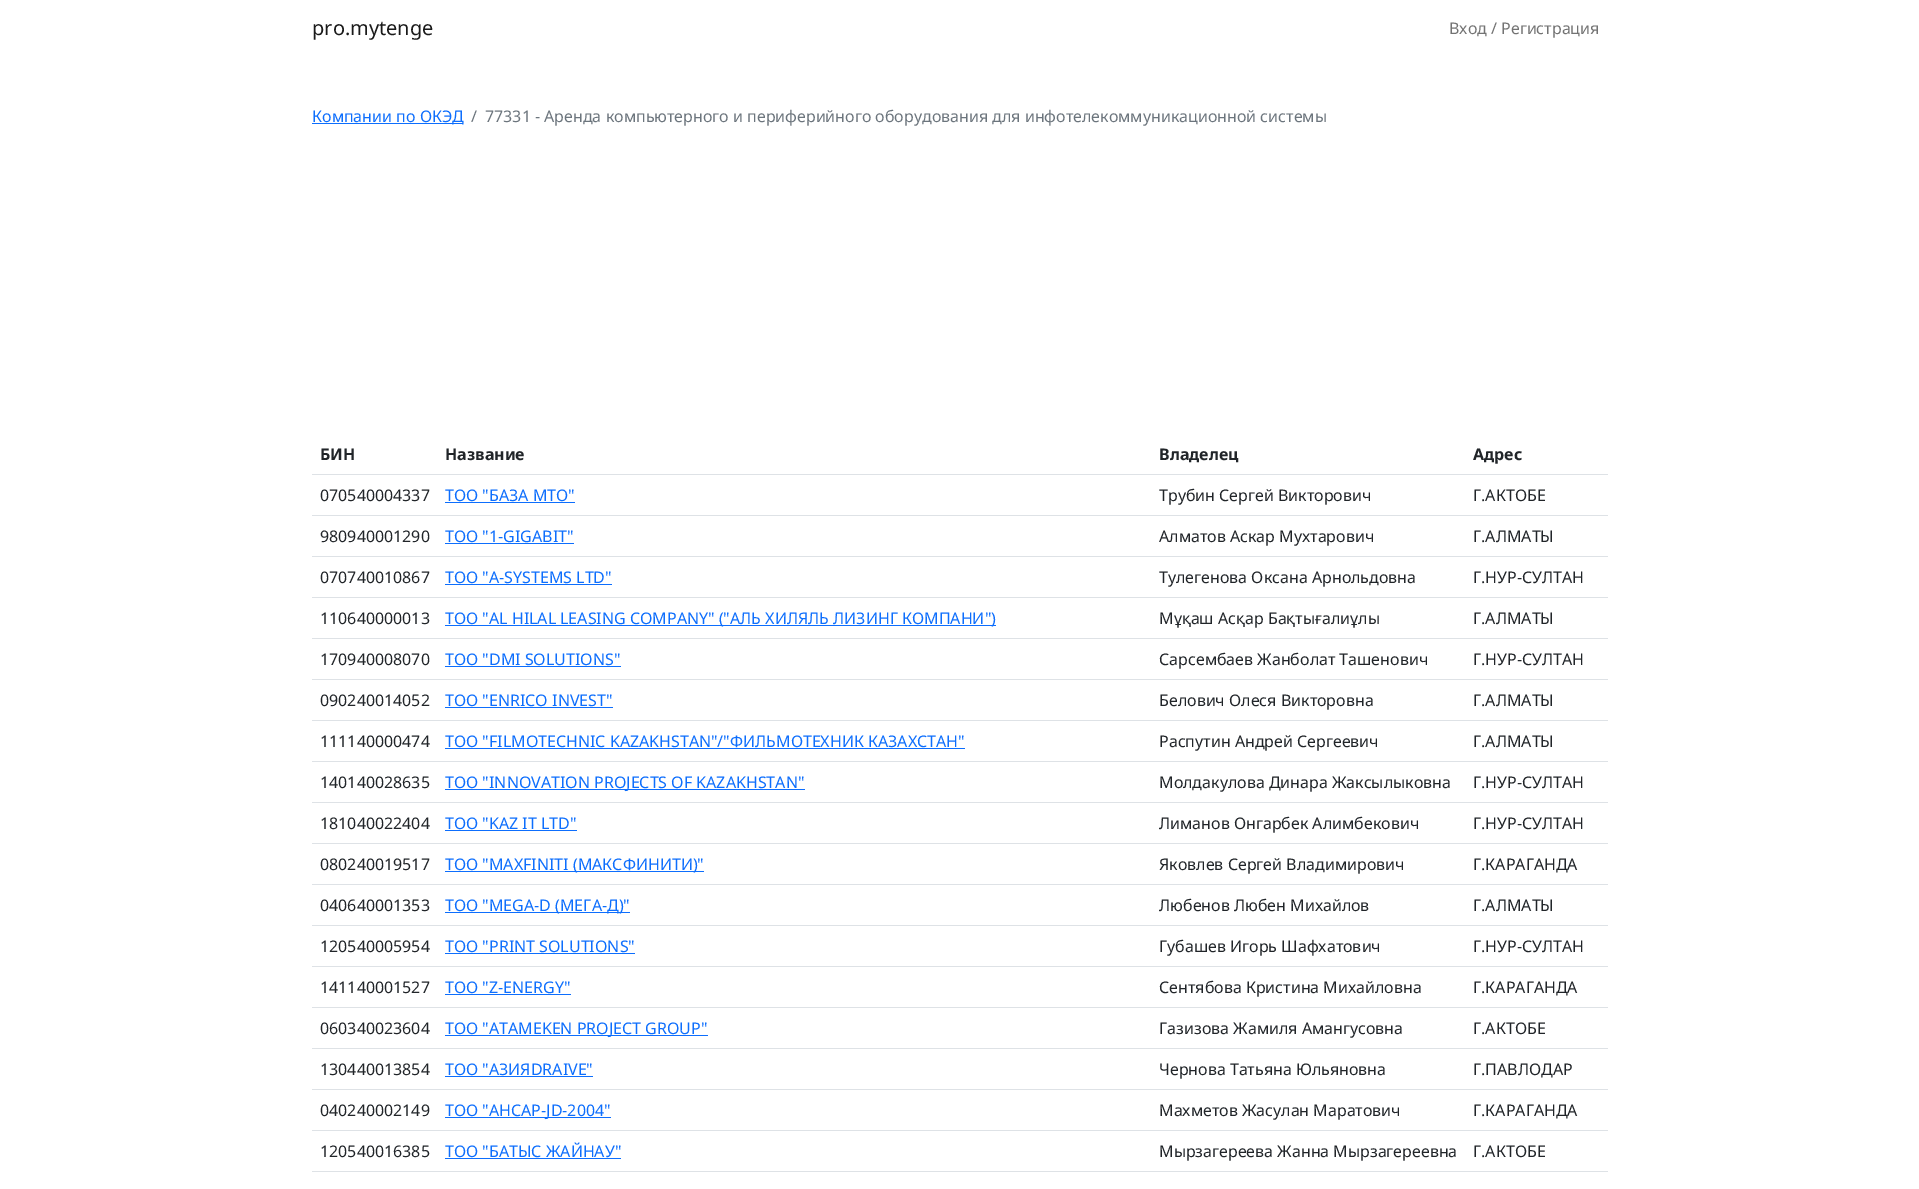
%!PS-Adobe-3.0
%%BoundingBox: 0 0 1919 1189
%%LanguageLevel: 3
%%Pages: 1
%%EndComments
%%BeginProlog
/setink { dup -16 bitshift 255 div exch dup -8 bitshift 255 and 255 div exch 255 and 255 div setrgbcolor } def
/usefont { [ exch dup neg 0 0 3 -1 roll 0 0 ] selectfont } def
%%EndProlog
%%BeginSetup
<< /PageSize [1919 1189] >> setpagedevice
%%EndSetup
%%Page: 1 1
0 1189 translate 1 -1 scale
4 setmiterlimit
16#FFFFFF setink
0 0 1919 1189 rectfill
/NotoSans-Regular 20 usefont
16#1A1A1A setink
312 35 moveto (pro.mytenge) show
/NotoSans-Regular 16 usefont
16#737373 setink
1449 34 moveto (Вход / Регистрация) show
16#0D6EFD setink
312 123 151 1 rectfill
312 122 moveto (Компании по ОКЭД) show
16#6C757D setink
471 122 moveto (/) show
485 122 moveto (77331 - Аренда компьютерного и периферийного оборудования для инфотелекоммуникационной системы) show
/NotoSans-Bold 16 usefont
16#212529 setink
[
    [(БИН) 320 460]
    [(Название) 445 460]
    [(Владелец) 1159 460]
] { aload pop moveto show } forall
16#DEE2E6 setink
312 474 1296 1 rectfill
16#212529 setink
1473 460 moveto (Адрес) show
/NotoSans-Regular 16 usefont
320 501 moveto (070540004337) show
16#0D6EFD setink
445 501 moveto (ТОО "БАЗА МТО") show
445 502 130 1 rectfill
16#212529 setink
1159 501 moveto (Трубин Сергей Викторович) show
16#DEE2E6 setink
312 515 1296 1 rectfill
16#212529 setink
1473 501 moveto (Г.АКТОБЕ) show
320 542 moveto (980940001290) show
16#0D6EFD setink
445 542 moveto (ТОО "1-GIGABIT") show
445 543 129 1 rectfill
16#212529 setink
1159 542 moveto (Алматов Аскар Мухтарович) show
16#DEE2E6 setink
312 556 1296 1 rectfill
16#212529 setink
1473 542 moveto (Г.АЛМАТЫ) show
320 583 moveto (070740010867) show
16#0D6EFD setink
445 583 moveto (ТОО "A-SYSTEMS LTD") show
445 584 167 1 rectfill
16#212529 setink
1159 583 moveto (Тулегенова Оксана Арнольдовна) show
16#DEE2E6 setink
312 597 1296 1 rectfill
16#212529 setink
1473 583 moveto (Г.НУР-СУЛТАН) show
320 624 moveto (110640000013) show
16#0D6EFD setink
445 625 551 1 rectfill
445 624 moveto (ТОО "AL HILAL LEASING COMPANY" \("АЛЬ ХИЛЯЛЬ ЛИЗИНГ КОМПАНИ"\)) show
16#212529 setink
1159 624 moveto (Мұқаш Асқар Бақтығалиұлы) show
16#DEE2E6 setink
312 638 1296 1 rectfill
16#212529 setink
1473 624 moveto (Г.АЛМАТЫ) show
320 665 moveto (170940008070) show
16#0D6EFD setink
445 665 moveto (ТОО "DMI SOLUTIONS") show
445 666 176 1 rectfill
16#212529 setink
1159 665 moveto (Сарсембаев Жанболат Ташенович) show
16#DEE2E6 setink
312 679 1296 1 rectfill
16#212529 setink
1473 665 moveto (Г.НУР-СУЛТАН) show
320 706 moveto (090240014052) show
16#0D6EFD setink
445 706 moveto (ТОО "ENRICO INVEST") show
445 707 168 1 rectfill
16#212529 setink
1159 706 moveto (Белович Олеся Викторовна) show
16#DEE2E6 setink
312 720 1296 1 rectfill
16#212529 setink
1473 706 moveto (Г.АЛМАТЫ) show
320 747 moveto (111140000474) show
16#0D6EFD setink
445 747 moveto (ТОО "FILMOTECHNIC KAZAKHSTAN"/"ФИЛЬМОТЕХНИК КАЗАХСТАН") show
445 748 520 1 rectfill
16#212529 setink
1159 747 moveto (Распутин Андрей Сергеевич) show
16#DEE2E6 setink
312 761 1296 1 rectfill
16#212529 setink
1473 747 moveto (Г.АЛМАТЫ) show
320 788 moveto (140140028635) show
16#0D6EFD setink
445 789 360 1 rectfill
445 788 moveto (ТОО "INNOVATION PROJECTS OF KAZAKHSTAN") show
16#212529 setink
1159 788 moveto (Молдакулова Динара Жаксылыковна) show
16#DEE2E6 setink
312 802 1296 1 rectfill
16#212529 setink
1473 788 moveto (Г.НУР-СУЛТАН) show
320 829 moveto (181040022404) show
16#0D6EFD setink
445 829 moveto (ТОО "KAZ IT LTD") show
445 830 132 1 rectfill
16#212529 setink
1159 829 moveto (Лиманов Онгарбек Алимбекович) show
16#DEE2E6 setink
312 843 1296 1 rectfill
16#212529 setink
1473 829 moveto (Г.НУР-СУЛТАН) show
320 870 moveto (080240019517) show
16#0D6EFD setink
445 871 259 1 rectfill
445 870 moveto (ТОО "MAXFINITI \(МАКСФИНИТИ\)") show
16#212529 setink
1159 870 moveto (Яковлев Сергей Владимирович) show
16#DEE2E6 setink
312 884 1296 1 rectfill
16#212529 setink
1473 870 moveto (Г.КАРАГАНДА) show
320 911 moveto (040640001353) show
16#0D6EFD setink
445 912 185 1 rectfill
445 911 moveto (ТОО "MEGA-D \(МЕГА-Д\)") show
16#212529 setink
1159 911 moveto (Любенов Любен Михайлов) show
16#DEE2E6 setink
312 925 1296 1 rectfill
16#212529 setink
1473 911 moveto (Г.АЛМАТЫ) show
320 952 moveto (120540005954) show
16#0D6EFD setink
445 952 moveto (ТОО "PRINT SOLUTIONS") show
445 953 190 1 rectfill
16#212529 setink
1159 952 moveto (Губашев Игорь Шафхатович) show
16#DEE2E6 setink
312 966 1296 1 rectfill
16#212529 setink
1473 952 moveto (Г.НУР-СУЛТАН) show
320 993 moveto (141140001527) show
16#0D6EFD setink
445 993 moveto (ТОО "Z-ENERGY") show
445 994 126 1 rectfill
16#212529 setink
1159 993 moveto (Сентябова Кристина Михайловна) show
16#DEE2E6 setink
312 1007 1296 1 rectfill
16#212529 setink
1473 993 moveto (Г.КАРАГАНДА) show
320 1034 moveto (060340023604) show
16#0D6EFD setink
445 1035 263 1 rectfill
445 1034 moveto (ТОО "АTAMEKEN PROJECT GROUP") show
16#212529 setink
1159 1034 moveto (Газизова Жамиля Амангусовна) show
16#DEE2E6 setink
312 1048 1296 1 rectfill
16#212529 setink
1473 1034 moveto (Г.АКТОБЕ) show
320 1075 moveto (130440013854) show
16#0D6EFD setink
445 1075 moveto (ТОО "АЗИЯDRAIVE") show
445 1076 148 1 rectfill
16#212529 setink
1159 1075 moveto (Чернова Татьяна Юльяновна) show
16#DEE2E6 setink
312 1089 1296 1 rectfill
16#212529 setink
1473 1075 moveto (Г.ПАВЛОДАР) show
320 1116 moveto (040240002149) show
16#0D6EFD setink
445 1117 166 1 rectfill
445 1116 moveto (ТОО "АНСАР-JD-2004") show
16#212529 setink
1159 1116 moveto (Махметов Жасулан Маратович) show
16#DEE2E6 setink
312 1130 1296 1 rectfill
16#212529 setink
1473 1116 moveto (Г.КАРАГАНДА) show
320 1157 moveto (120540016385) show
16#0D6EFD setink
445 1157 moveto (ТОО "БАТЫС ЖАЙНАУ") show
445 1158 176 1 rectfill
16#212529 setink
1159 1157 moveto (Мырзагереева Жанна Мырзагереевна) show
16#DEE2E6 setink
312 1171 1296 1 rectfill
16#212529 setink
1473 1157 moveto (Г.АКТОБЕ) show
showpage
%%EOF
